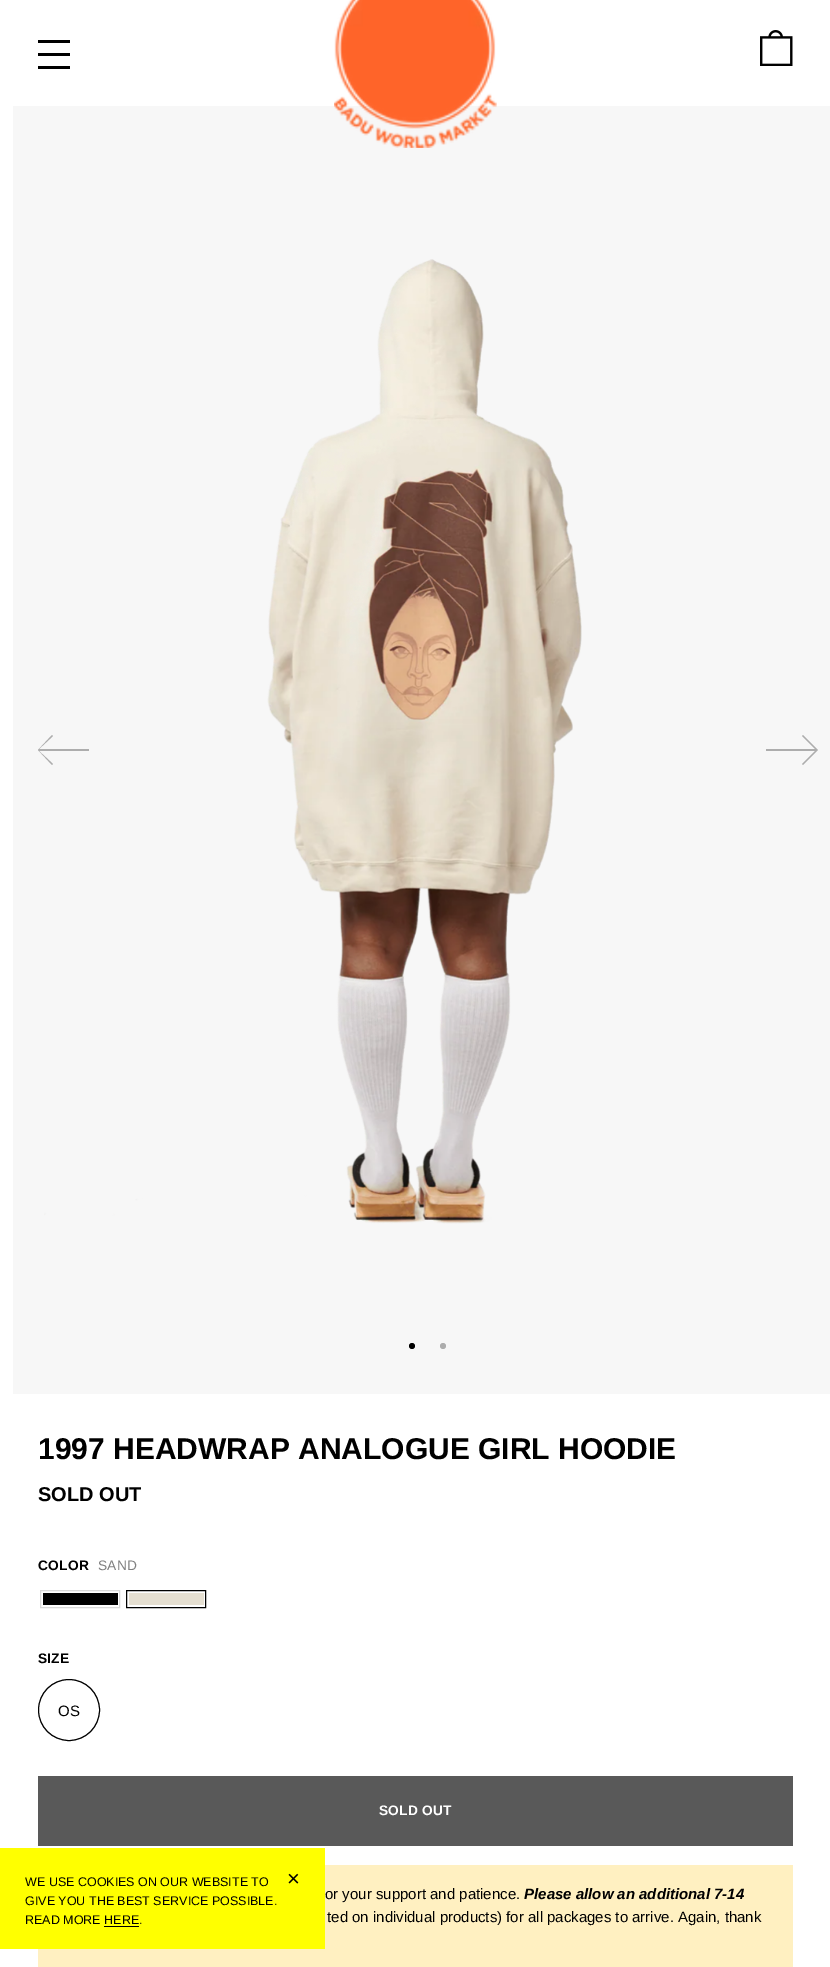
%!PS-Adobe-3.0
%%BoundingBox: 0 0 830 1967
%%LanguageLevel: 3
%%Pages: 1
%%EndComments
%%BeginProlog
/setink { dup -16 bitshift 255 div exch dup -8 bitshift 255 and 255 div exch 255 and 255 div setrgbcolor } def
/usefont { [ exch dup neg 0 0 3 -1 roll 0 0 ] selectfont } def
/disc { newpath 0 360 arc closepath } def
/drawimage { 5 dict begin { /h /w /y /x /name } { exch def } forall
  gsave x y translate w h scale
  w h 8 [w 0 0 h 0 0] name (r) file false 3 colorimage grestore end } def
%%EndProlog
%%BeginSetup
<< /PageSize [830 1967] >> setpagedevice
%%EndSetup
%%Page: 1 1
0 1967 translate 1 -1 scale
4 setmiterlimit
16#FFFFFF setink
0 0 830 1967 rectfill
[
    [38 53 32 3 16#000000]
    [38 40 32 3 16#000000]
    [38 66 32 3 16#000000]
    [13 106 817 1288 16#F7F7F7]
] { aload pop setink rectfill } forall
(img1.raw) 334 0 163 148 drawimage
(img2.raw) 760 30 33 36 drawimage
(img3.raw) 44 259 538 965 drawimage
16#ADADAD setink
89 749 moveto 39 749 lineto 53 736 lineto 52 735 lineto 38 750 lineto 52 765 lineto 53 764 lineto 39 751 lineto 89 751 lineto closepath fill
766 751 moveto 815 751 lineto 802 764 lineto 803 765 lineto 818 750 lineto 803 735 lineto 802 736 lineto 815 749 lineto 766 749 lineto closepath fill
16#000000 setink
412 1346 3 disc fill
16#ADADAD setink
443 1346 3 disc fill
/LiberationSans-Bold 30 usefont
16#000000 setink
38 1459 moveto (1997 HEADWRAP ANALOGUE GIRL HOODIE) show
/LiberationSans-Bold 20 usefont
38 1501 moveto (SOLD OUT) show
/LiberationSans-Bold 13.75 usefont
38 1570 moveto 0.25 0 (COLOR) ashow
/LiberationSans-Regular 13.75 usefont
16#808080 setink
98 1570 moveto 0.25 0 (SAND) ashow
16#000000 setink
43 1593 75 12 rectfill
16#D9D9D9 setink
40.5 1590.5 79 17 rectstroke
16#E5DFD1 setink
129 1593 75 12 rectfill
16#000000 setink
126.5 1590.5 79 17 rectstroke
/LiberationSans-Bold 13.75 usefont
38 1663 moveto 0.25 0 (SIZE) ashow
69 1710 30.5 disc stroke
/LiberationSans-Regular 15 usefont
58 1716 moveto (OS) show
16#595959 setink
38 1776 755 70 rectfill
/LiberationSans-Bold 13.75 usefont
16#FFFFFF setink
379 1815 moveto 0.25 0 (SOLD OUT) ashow
16#FFF0C1 setink
38 1865 755 102 rectfill
/LiberationSans-Regular 15 usefont
16#000000 setink
325 1899 moveto (or your support and patience.) show
/LiberationSans-BoldItalic 15 usefont
524 1899 moveto (Please allow an additional 7-14) show
/LiberationSans-Regular 15 usefont
327 1922 moveto (ted on individual products\) for all packages to arrive. Again, thank) show
16#FFFF00 setink
0 1848 325 101 rectfill
/LiberationSans-Regular 12.5 usefont
16#000000 setink
25 1886 moveto (WE USE COOKIES ON OUR WEBSITE TO) show
/LiberationSans-Regular 22 usefont
287 1886 moveto (×) show
/LiberationSans-Regular 12.5 usefont
25 1905 moveto (GIVE YOU THE BEST SERVICE POSSIBLE.) show
25 1924 moveto (READ MORE HERE.) show
104 1926 35 1 rectfill
showpage
%%EOF
